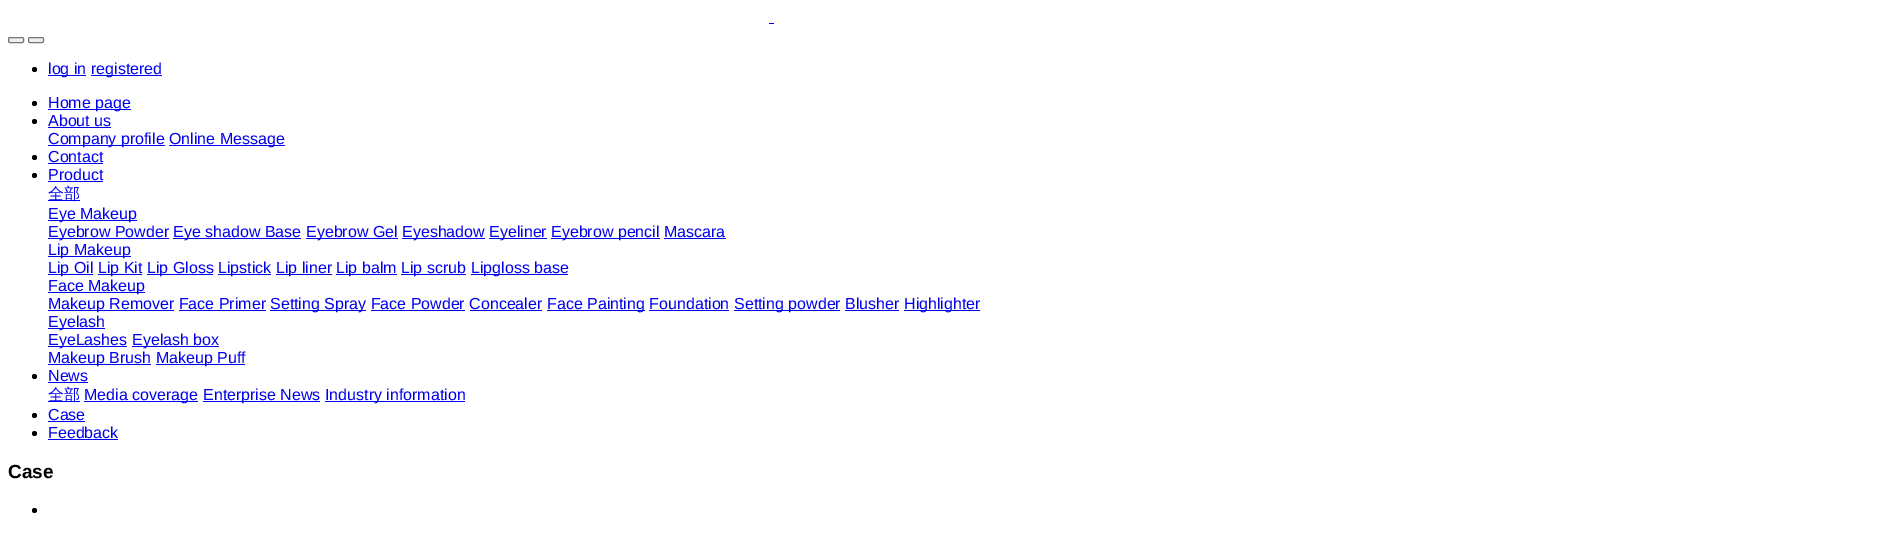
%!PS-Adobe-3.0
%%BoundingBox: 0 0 1886 535
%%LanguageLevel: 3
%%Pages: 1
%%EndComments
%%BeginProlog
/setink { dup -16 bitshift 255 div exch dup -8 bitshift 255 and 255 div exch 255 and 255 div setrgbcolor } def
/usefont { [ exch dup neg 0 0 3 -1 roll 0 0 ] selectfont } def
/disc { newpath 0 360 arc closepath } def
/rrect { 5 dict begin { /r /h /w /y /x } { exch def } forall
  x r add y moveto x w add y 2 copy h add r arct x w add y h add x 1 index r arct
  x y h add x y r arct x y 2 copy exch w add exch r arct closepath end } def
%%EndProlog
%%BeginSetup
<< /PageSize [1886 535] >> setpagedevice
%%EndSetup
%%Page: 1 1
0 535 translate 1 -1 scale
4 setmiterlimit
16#FFFFFF setink
0 0 1886 535 rectfill
16#0000EE setink
769 23 5 1 rectfill
16#EFEFEF setink
8.5 37.5 15 5 1.5 rrect gsave fill grestore
16#767676 setink
stroke
16#EFEFEF setink
28.5 37.5 15 5 1.5 rrect gsave fill grestore
16#767676 setink
stroke
16#000000 setink
34.5 69.5 2.5 disc fill
16#0000EE setink
48 75 38 1 rectfill
/LiberationSans-Regular 16 usefont
48 74 moveto (log in) show
91 75 71 1 rectfill
91 74 moveto (registered) show
16#000000 setink
34.5 103.5 2.5 disc fill
16#0000EE setink
48 109 83 1 rectfill
48 108 moveto (Home page) show
16#000000 setink
34.5 121.5 2.5 disc fill
16#0000EE setink
48 126 moveto (About us) show
48 127 63 1 rectfill
48 145 117 1 rectfill
48 144 moveto (Company profile) show
169 145 116 1 rectfill
169 144 moveto (Online Message) show
16#000000 setink
34.5 157.5 2.5 disc fill
16#0000EE setink
48 162 moveto (Contact) show
48 163 55 1 rectfill
16#000000 setink
34.5 175.5 2.5 disc fill
16#0000EE setink
48 180 moveto (Product) show
48 181 55 1 rectfill
48 200 32 1 rectfill
/WenQuanYiZenHei-Medium 16 usefont
48 199 moveto (全部) show
48 220 89 1 rectfill
/LiberationSans-Regular 16 usefont
48 219 moveto (Eye Makeup) show
48 238 121 1 rectfill
48 237 moveto (Eyebrow Powder) show
173 238 128 1 rectfill
173 237 moveto (Eye shadow Base) show
306 238 92 1 rectfill
306 237 moveto (Eyebrow Gel) show
402 238 83 1 rectfill
402 237 moveto (Eyeshadow) show
489 238 58 1 rectfill
489 237 moveto (Eyeliner) show
551 238 109 1 rectfill
551 237 moveto (Eyebrow pencil Mascara) show
664 238 62 1 rectfill
48 256 83 1 rectfill
48 255 moveto (Lip Makeup) show
48 274 45 1 rectfill
48 273 moveto (Lip Oil) show
98 274 44 1 rectfill
98 273 moveto (Lip Kit) show
147 274 66 1 rectfill
147 273 moveto (Lip Gloss) show
218 274 53 1 rectfill
218 273 moveto (Lipstick) show
276 274 56 1 rectfill
276 273 moveto (Lip liner) show
336 274 61 1 rectfill
336 273 moveto (Lip balm) show
401 274 65 1 rectfill
401 273 moveto (Lip scrub) show
471 274 97 1 rectfill
471 273 moveto (Lipgloss base) show
48 292 97 1 rectfill
48 291 moveto (Face Makeup) show
48 310 126 1 rectfill
48 309 moveto (Makeup Remover Face Primer) show
270 310 96 1 rectfill
270 309 moveto (Setting Spray Face Powder Concealer) show
547 310 98 1 rectfill
547 309 moveto (Face Painting Foundation) show
734 310 106 1 rectfill
734 309 moveto (Setting powder Blusher) show
904 310 76 1 rectfill
904 309 moveto (Highlighter) show
[
    [179 310 87 1 16#0000EE]
    [371 310 94 1 16#0000EE]
    [470 310 72 1 16#0000EE]
    [649 310 80 1 16#0000EE]
    [845 310 54 1 16#0000EE]
    [48 328 57 1 16#0000EE]
] { aload pop setink rectfill } forall
48 327 moveto (Eyelash) show
48 346 79 1 rectfill
48 345 moveto (EyeLashes) show
132 346 87 1 rectfill
132 345 moveto (Eyelash box) show
48 364 103 1 rectfill
48 363 moveto (Makeup Brush) show
156 364 89 1 rectfill
156 363 moveto (Makeup Puff) show
16#000000 setink
34.5 376.5 2.5 disc fill
16#0000EE setink
48 381 moveto (News) show
48 382 40 1 rectfill
48 401 32 1 rectfill
/WenQuanYiZenHei-Medium 16 usefont
48 400 moveto (全部) show
84 401 114 1 rectfill
/LiberationSans-Regular 16 usefont
84 400 moveto (Media coverage) show
203 401 117 1 rectfill
203 400 moveto (Enterprise News) show
325 401 140 1 rectfill
325 400 moveto (Industry information) show
16#000000 setink
34.5 415.5 2.5 disc fill
16#0000EE setink
48 420 moveto (Case) show
48 421 37 1 rectfill
16#000000 setink
34.5 433.5 2.5 disc fill
16#0000EE setink
48 438 moveto (Feedback) show
48 439 70 1 rectfill
/LiberationSans-Bold 19 usefont
16#000000 setink
8 478 moveto (Case) show
34.5 510.5 2.5 disc fill
showpage
%%EOF
